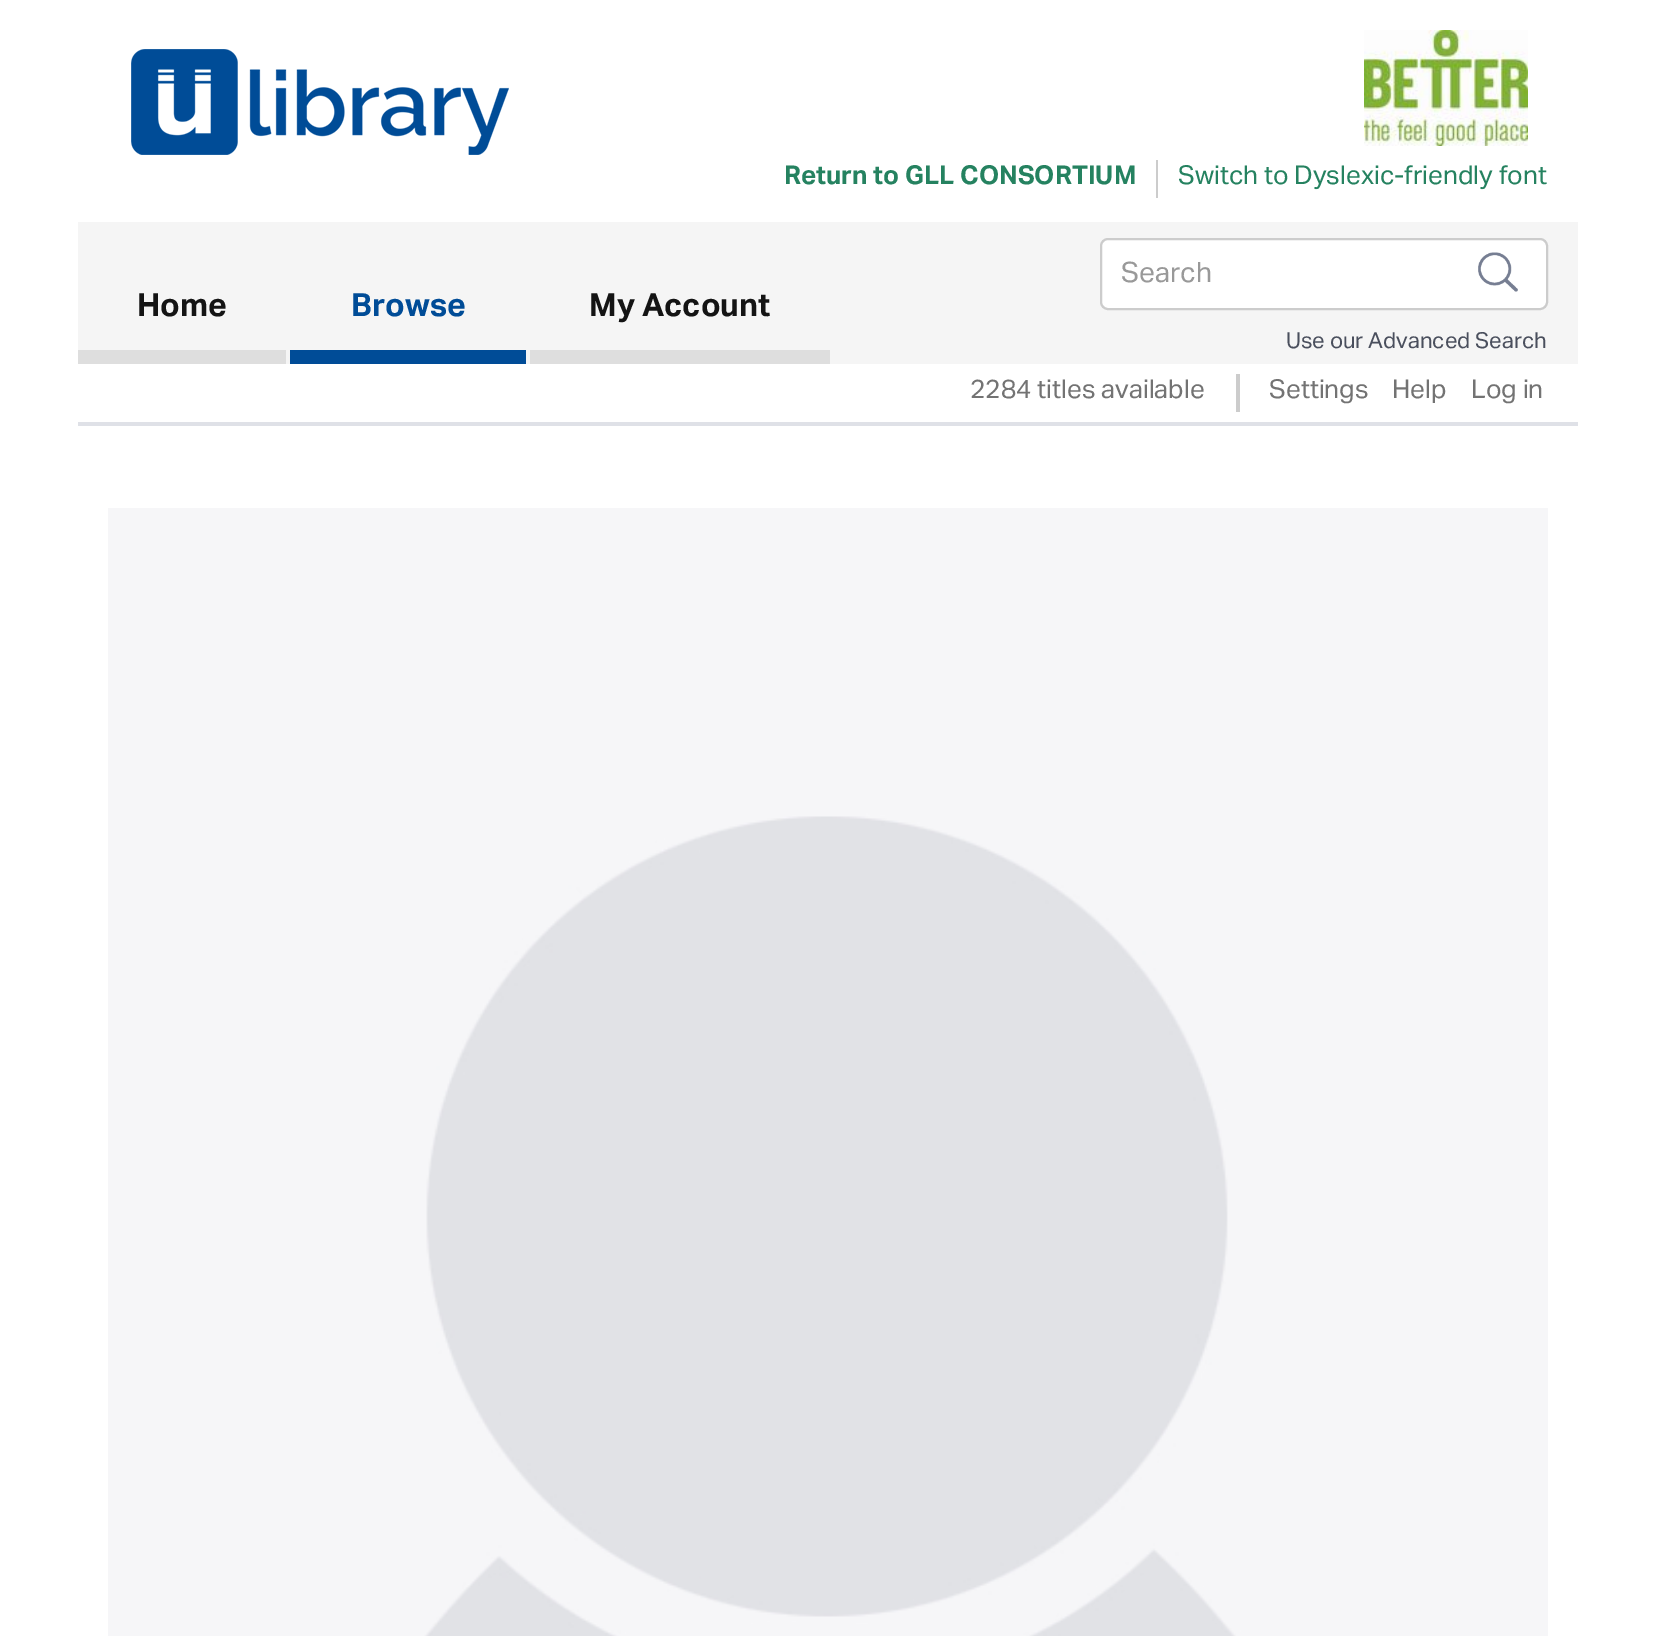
%!PS-Adobe-3.0
%%BoundingBox: 0 0 1653 1636
%%LanguageLevel: 3
%%Pages: 1
%%EndComments
%%BeginProlog
/setink { dup -16 bitshift 255 div exch dup -8 bitshift 255 and 255 div exch 255 and 255 div setrgbcolor } def
/usefont { [ exch dup neg 0 0 3 -1 roll 0 0 ] selectfont } def
/rrect { 5 dict begin { /r /h /w /y /x } { exch def } forall
  x r add y moveto x w add y 2 copy h add r arct x w add y h add x 1 index r arct
  x y h add x y r arct x y 2 copy exch w add exch r arct closepath end } def
/drawimage { 5 dict begin { /h /w /y /x /name } { exch def } forall
  gsave x y translate w h scale
  w h 8 [w 0 0 h 0 0] name (r) file false 3 colorimage grestore end } def
%%EndProlog
%%BeginSetup
<< /PageSize [1653 1636] >> setpagedevice
%%EndSetup
%%Page: 1 1
0 1636 translate 1 -1 scale
4 setmiterlimit
16#FFFFFF setink
0 0 1653 1636 rectfill
(img1.raw) 131 49 378 106 drawimage
(img2.raw) 1364 30 164 116 drawimage
16#CCCCCC setink
1156 160 2 38 rectfill
/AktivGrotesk-Bold 26 usefont
16#258260 setink
784 184 moveto (Return to GLL CONSORTIUM) show
/AktivGrotesk-Regular 26 usefont
1178 184 moveto (Switch to Dyslexic-friendly font) show
16#F5F5F5 setink
78 222 1500 142 rectfill
16#DEDEDE setink
78 350 208 14 rectfill
/AktivGrotesk-Bold 32 usefont
16#141414 setink
137 316 moveto (Home) show
16#004C97 setink
290 350 236 14 rectfill
351 316 moveto (Browse) show
16#DEDEDE setink
530 350 300 14 rectfill
16#141414 setink
589 316 moveto (My Account) show
16#FFFFFF setink
1101 239 446 70 7 rrect gsave fill grestore
16#CCCCCC setink
2 setlinewidth
stroke
/AktivGrotesk-Regular 28 usefont
16#999999 setink
1121 282 moveto (Search) show
(img3.raw) 1478 252 40 40 drawimage
/AktivGrotesk-Regular 22 usefont
16#4A4F5D setink
1286 348 moveto (Use our Advanced Search) show
/AktivGrotesk-Regular 26 usefont
16#737373 setink
970 398 moveto (2284 titles available) show
16#CCCCCC setink
1236 374 4 38 rectfill
16#737373 setink
[
    [(Settings) 1269 398]
    [(Help) 1392 398]
    [(Log in) 1471 398]
] { aload pop moveto show } forall
16#DFE1E7 setink
78 422 1500 4 rectfill
(img4.raw) 108 508 1440 1128 drawimage
showpage
%%EOF
